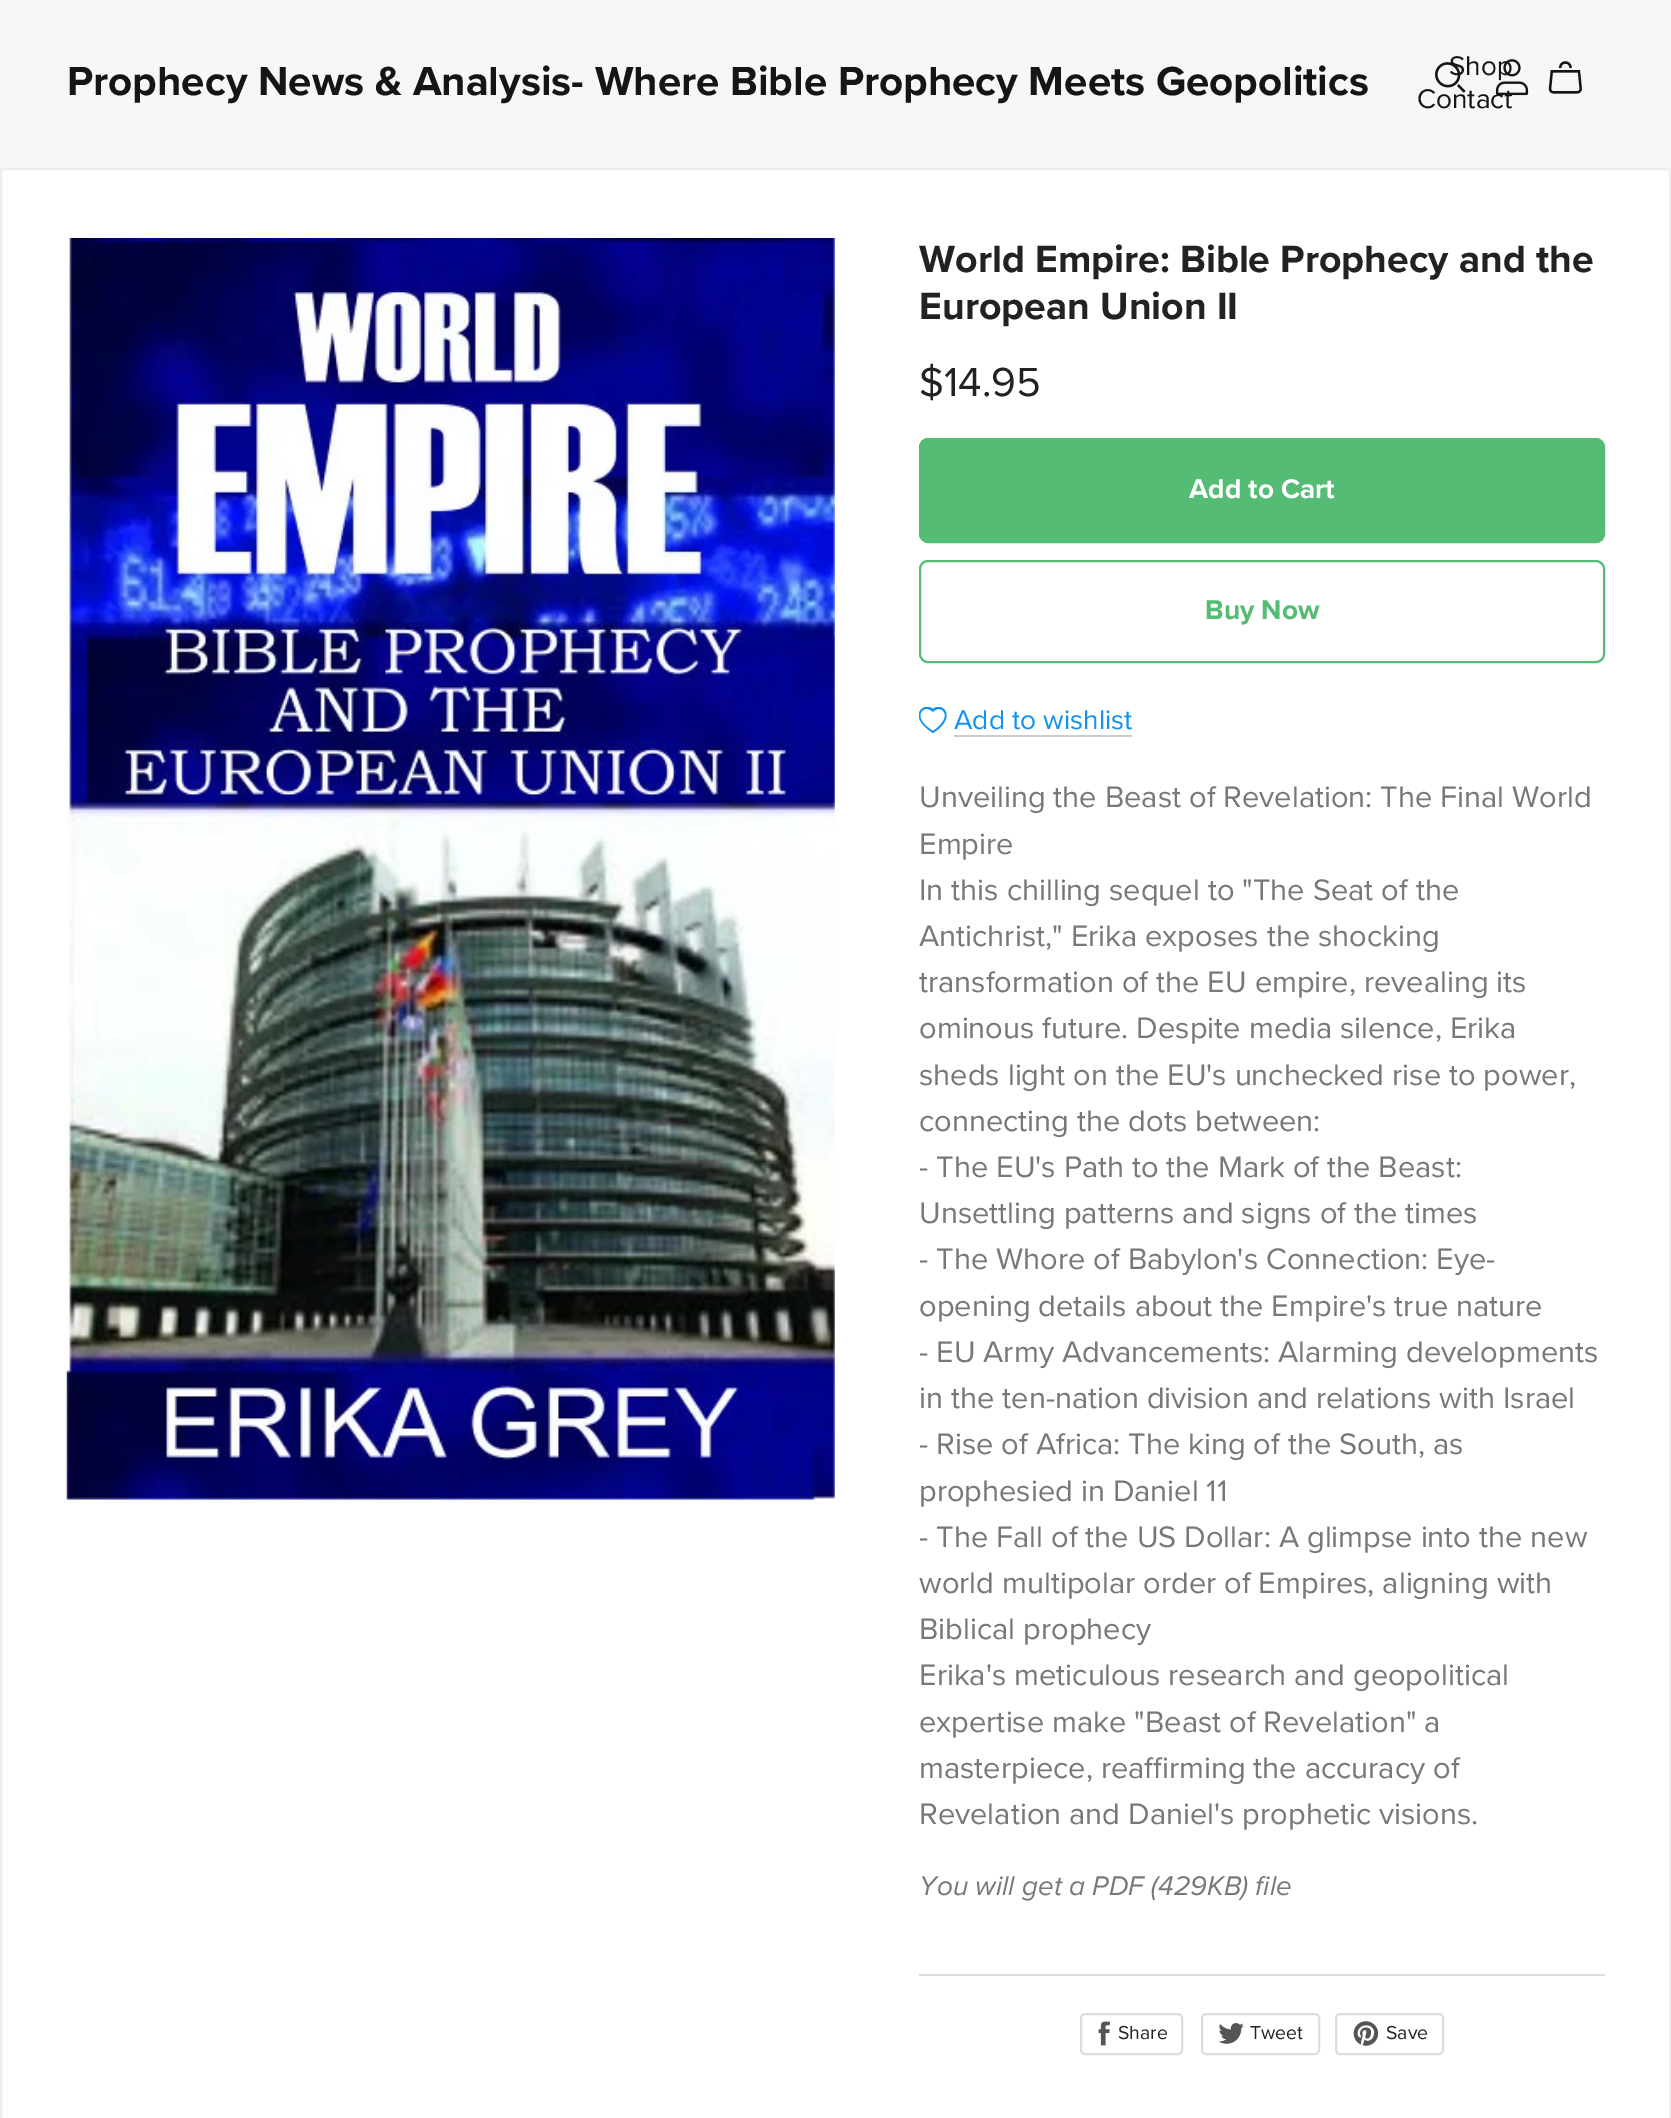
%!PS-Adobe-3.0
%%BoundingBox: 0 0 1671 2118
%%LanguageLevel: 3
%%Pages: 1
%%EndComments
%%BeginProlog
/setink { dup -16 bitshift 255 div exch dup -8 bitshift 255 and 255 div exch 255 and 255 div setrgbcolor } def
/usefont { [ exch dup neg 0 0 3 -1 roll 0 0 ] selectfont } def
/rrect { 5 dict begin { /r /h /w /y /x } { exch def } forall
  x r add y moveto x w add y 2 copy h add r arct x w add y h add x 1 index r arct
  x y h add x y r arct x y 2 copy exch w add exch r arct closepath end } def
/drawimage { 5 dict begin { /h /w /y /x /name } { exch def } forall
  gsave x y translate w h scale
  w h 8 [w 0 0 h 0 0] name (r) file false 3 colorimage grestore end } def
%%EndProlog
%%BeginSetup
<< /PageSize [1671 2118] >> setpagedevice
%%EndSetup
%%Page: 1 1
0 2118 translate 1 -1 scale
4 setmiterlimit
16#F7F7F7 setink
0 0 1671 2118 rectfill
/ProximaNova-Bold 42 usefont
16#151515 setink
67 95 moveto (Prophecy News & Analysis- Where Bible Prophecy Meets Geopolitics) show
/ProximaNova-Regular 28 usefont
1449 75 moveto (Shop) show
1417 108 moveto (Contact) show
(img1.raw) 1435 62 31 31 drawimage
(img2.raw) 1495 59 34 37 drawimage
(img3.raw) 1548 61 34 33 drawimage
16#FFFFFF setink
1 169 moveto 1670 169 lineto 1670 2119 lineto 1 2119 lineto closepath gsave fill grestore
16#EEEEEE setink
2 setlinewidth
stroke
(img4.raw) 66 238 769 1262 drawimage
/ProximaNova-Bold 39.25 usefont
16#222222 setink
919 272 moveto (World Empire: Bible Prophecy and the) show
919 319 moveto (European Union II) show
/ProximaNova-Regular 42 usefont
919 396 moveto ($14.95) show
16#55BC75 setink
920 439 684 103 8 rrect gsave fill grestore
stroke
/ProximaNova-Bold 28 usefont
16#FFFFFF setink
1189 498 moveto (Add to Cart) show
16#55BC75 setink
920 561 684 101 8 rrect stroke
1205 619 moveto (Buy Now) show
/ProximaNova-Regular 28 usefont
16#1292EE setink
954 729 moveto (Add to wishlist) show
16#CCCCCC setink
954 735 178 2 rectfill
gsave
919 707 28 28 rectclip
16#1292EE setink
933 712 moveto 926 705 918 711 921 719 curveto 923 724 928 728 933 731 curveto 955 716 941 704 934 711 curveto closepath 933 733 moveto 906 716 924 701 933 709 curveto 941 701 959 716 933 733 curveto fill
grestore
/ProximaNova-Regular 30.8 usefont
16#797875 setink
[
    [(Unveiling the Beast of Revelation: The Final World) 919 807]
    [(Empire) 919 854]
    [(In this chilling sequel to "The Seat of the) 919 900]
    [(Antichrist," Erika exposes the shocking) 919 946]
    [(transformation of the EU empire, revealing its) 919 992]
    [(ominous future. Despite media silence, Erika) 919 1038]
    [(sheds light on the EU's unchecked rise to power,) 919 1085]
    [(connecting the dots between:) 919 1131]
    [(- The EU's Path to the Mark of the Beast:) 919 1177]
    [(Unsettling patterns and signs of the times) 919 1223]
    [(- The Whore of Babylon's Connection: Eye-) 919 1269]
    [(opening details about the Empire's true nature) 919 1316]
    [(- EU Army Advancements: Alarming developments) 919 1362]
    [(in the ten-nation division and relations with Israel) 919 1408]
    [(- Rise of Africa: The king of the South, as) 919 1454]
    [(prophesied in Daniel 11) 919 1501]
    [(- The Fall of the US Dollar: A glimpse into the new) 919 1547]
    [(world multipolar order of Empires, aligning with) 919 1593]
    [(Biblical prophecy) 919 1639]
    [(Erika's meticulous research and geopolitical) 919 1685]
    [(expertise make "Beast of Revelation" a) 919 1732]
    [(masterpiece, reaffirming the accuracy of) 919 1778]
    [(Revelation and Daniel's prophetic visions.) 919 1824]
] { aload pop moveto show } forall
/ProximaNova-Italic 28 usefont
919 1895 moveto (You will get a PDF \(429KB\) file) show
16#DDDDDD setink
919 1974 686 2 rectfill
1081 2014 101 40 4 rrect stroke
(img5.raw) 1098 2021 12 25 drawimage
/ProximaNova-Regular 19.5 usefont
16#222222 setink
1118 2039 moveto (Share) show
16#DDDDDD setink
1202 2014 117 40 4 rrect stroke
(img6.raw) 1218 2023 26 21 drawimage
16#222222 setink
1250 2039 moveto (Tweet) show
16#DDDDDD setink
1336 2014 107 40 4 rrect stroke
(img7.raw) 1353 2021 26 25 drawimage
16#222222 setink
1386 2039 moveto (Save) show
showpage
%%EOF
